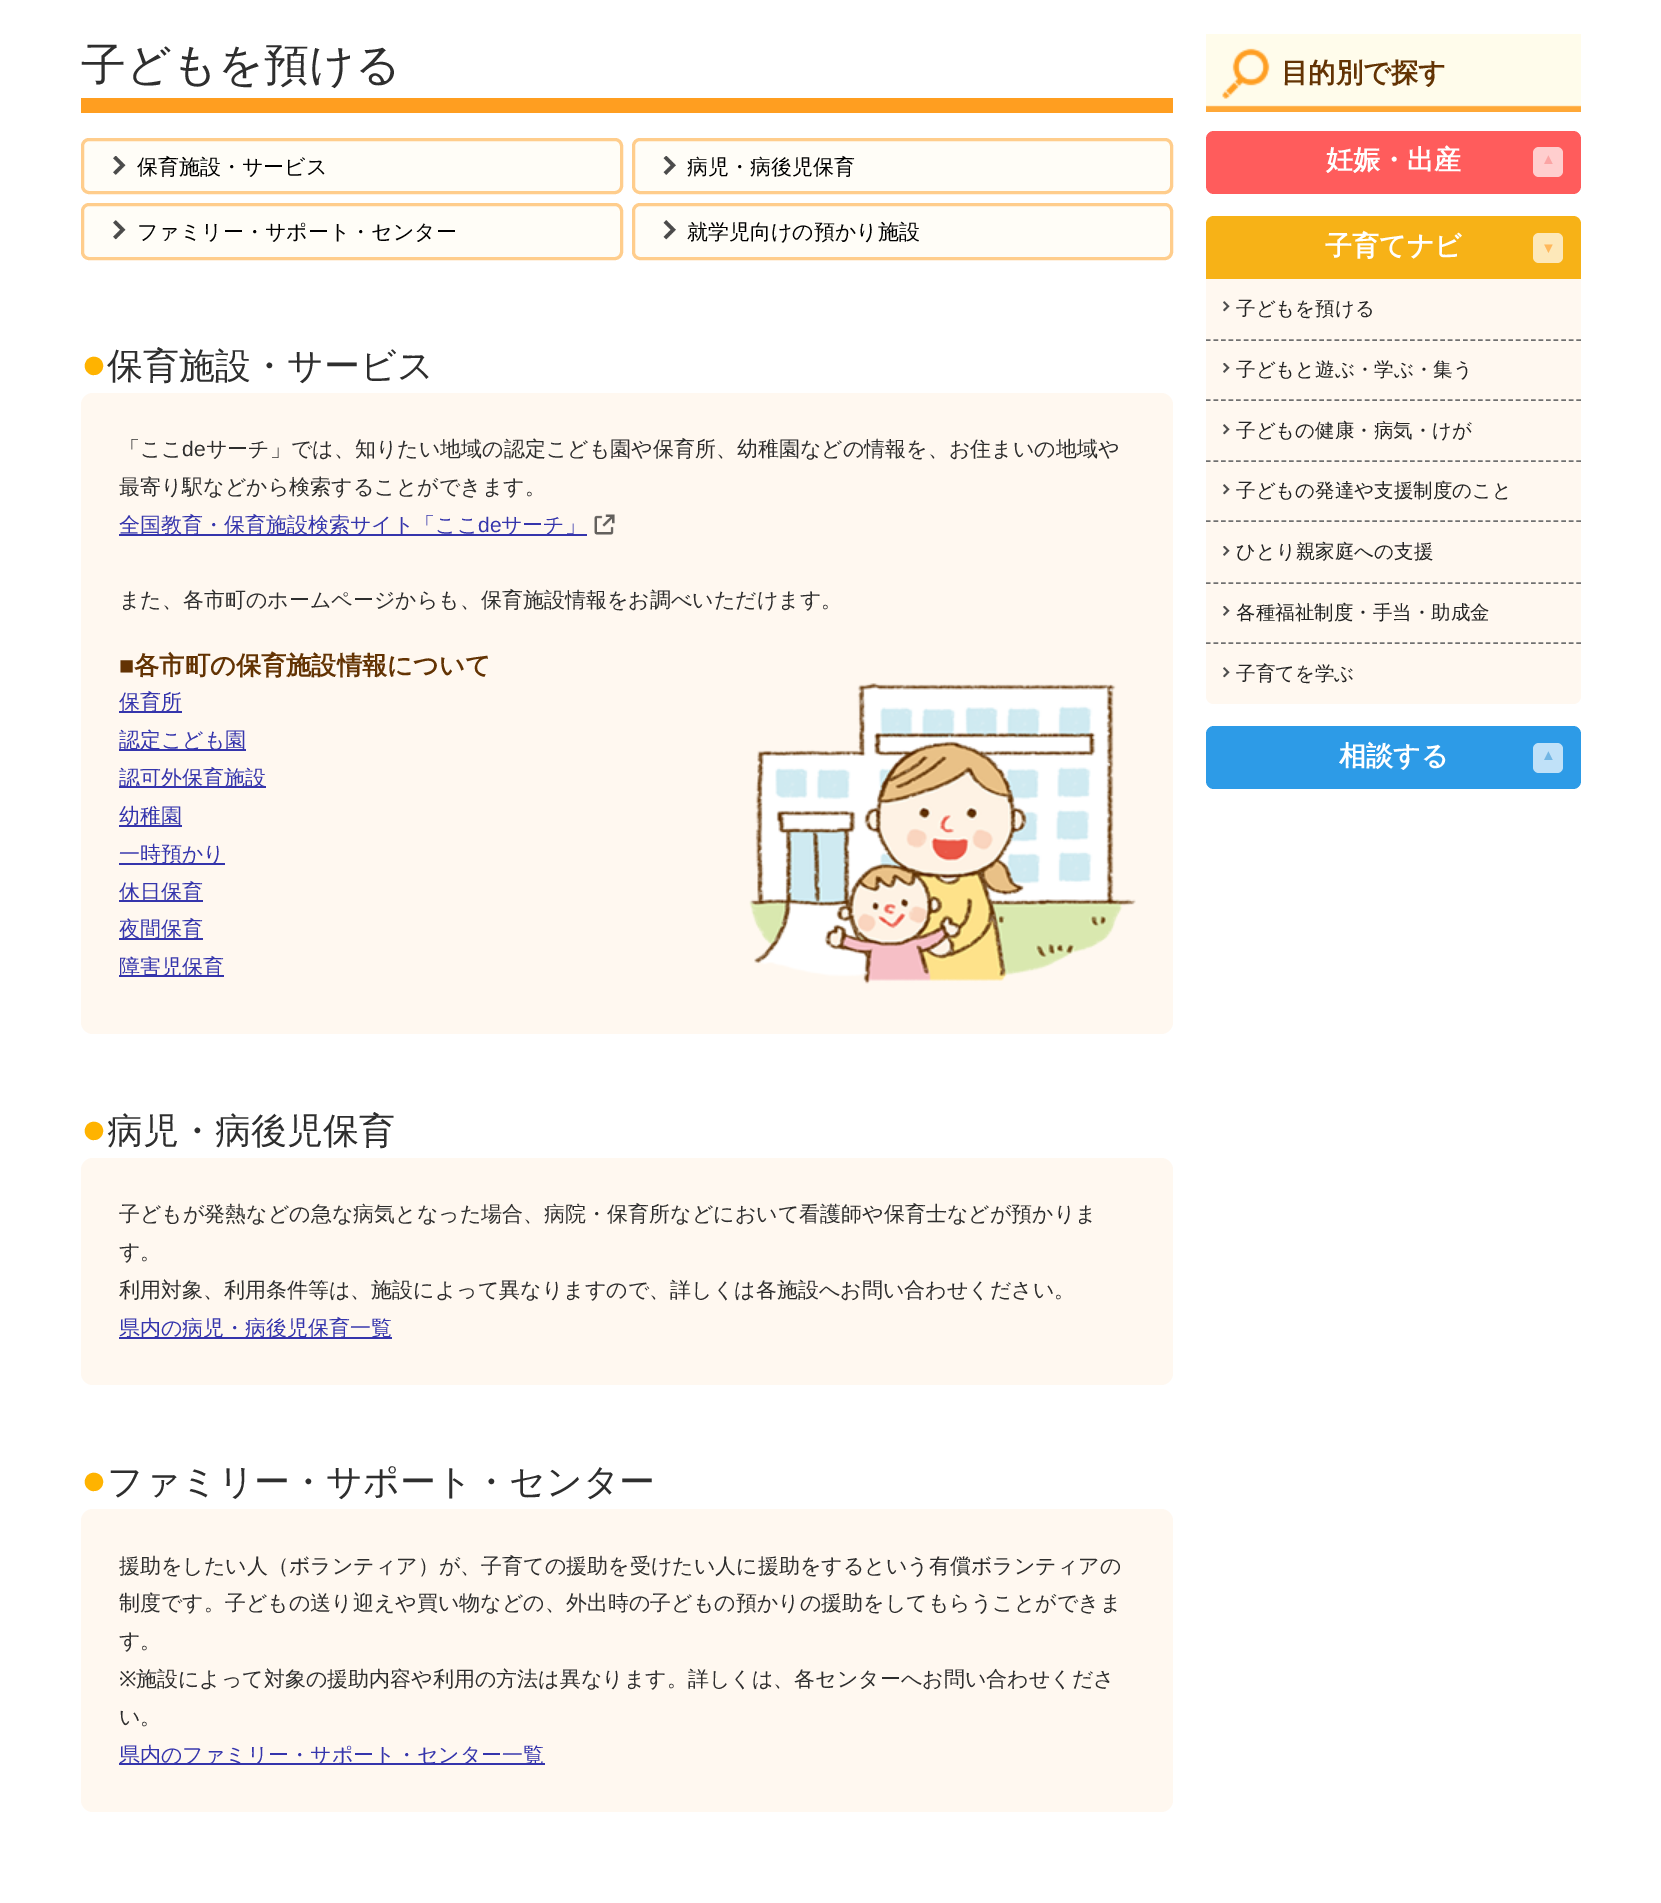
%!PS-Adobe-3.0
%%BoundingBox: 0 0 1661 1903
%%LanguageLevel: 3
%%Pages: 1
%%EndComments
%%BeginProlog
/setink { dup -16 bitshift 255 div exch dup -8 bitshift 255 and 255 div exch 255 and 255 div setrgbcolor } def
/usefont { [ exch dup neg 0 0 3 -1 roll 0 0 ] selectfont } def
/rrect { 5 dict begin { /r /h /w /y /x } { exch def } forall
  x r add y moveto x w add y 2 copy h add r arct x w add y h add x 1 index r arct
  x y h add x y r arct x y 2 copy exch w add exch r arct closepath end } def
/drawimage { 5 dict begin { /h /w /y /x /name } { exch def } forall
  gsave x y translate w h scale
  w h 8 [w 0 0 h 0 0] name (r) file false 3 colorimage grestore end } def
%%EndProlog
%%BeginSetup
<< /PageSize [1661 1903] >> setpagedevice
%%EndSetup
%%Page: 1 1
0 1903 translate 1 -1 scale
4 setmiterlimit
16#FFFFFF setink
0 0 1661 1903 rectfill
16#FF9E20 setink
81 98 1092 15 rectfill
/WenQuanYiZenHei-Medium 45 usefont
16#2E2E2E setink
81 80 moveto (子どもを預ける) show
16#FFFDF7 setink
81 138 542 56 8 rrect fill
(img1.raw) 113 156 13 19 drawimage
16#FFCD8C setink
3 setlinewidth
82.5 139.5 539 53 6.5 rrect stroke
/WenQuanYiZenHei-Medium 21 usefont
16#000000 setink
137 174 moveto (保育施設・サービス) show
16#FFFDF7 setink
632 138 541 56 8 rrect fill
(img2.raw) 663 156 13 19 drawimage
16#FFCD8C setink
633.5 139.5 538 53 6.5 rrect stroke
16#000000 setink
687 174 moveto (病児・病後児保育) show
16#FFFDF7 setink
81 203 542 57 8 rrect fill
(img3.raw) 113 220 13 20 drawimage
16#FFCD8C setink
82.5 204.5 539 54 6.5 rrect stroke
16#000000 setink
137 239 moveto (ファミリー・サポート・センター) show
16#FFFDF7 setink
632 203 541 57 8 rrect fill
(img4.raw) 663 220 13 20 drawimage
16#FFCD8C setink
633.5 204.5 538 54 6.5 rrect stroke
16#000000 setink
687 239 moveto (就学児向けの預かり施設) show
/LiberationSans-Regular 43 usefont
16#FFB300 setink
81 378 moveto (●) show
/WenQuanYiZenHei-Medium 36 usefont
16#2E2E2E setink
107 378 moveto (保育施設・サービス) show
16#FFF8F0 setink
81 393 1092 641 12 rrect fill
/WenQuanYiZenHei-Medium 21 usefont
16#2E2E2E setink
119 456 moveto (「ここ) show
/LiberationSans-Regular 21 usefont
182 456 moveto (de) show
/WenQuanYiZenHei-Medium 21 usefont
206 456 moveto (サーチ」では、知りたい地域の認定こども園や保育所、幼稚園などの情報を、お住まいの地域や) show
119 494 moveto (最寄り駅などから検索することができます。) show
16#3535AC setink
119 534 468 2 rectfill
119 532 moveto (全国教育・保育施設検索サイト「ここ) show
/LiberationSans-Regular 21 usefont
478 532 moveto (de) show
/WenQuanYiZenHei-Medium 21 usefont
501 532 moveto (サーチ」) show
(img5.raw) 594 514 21 21 drawimage
16#2E2E2E setink
119 607 moveto (また、各市町のホームページからも、保育施設情報をお調べいただけます。) show
/LiberationSans-Bold 25.25 usefont
16#633303 setink
119 674 moveto (■) show
/WenQuanYiZenHei-Bold 25.25 usefont
134 674 moveto (各市町の保育施設情報について) show
16#3535AC setink
119 711 63 2 rectfill
/WenQuanYiZenHei-Medium 21 usefont
119 709 moveto (保育所) show
119 749 127 2 rectfill
119 747 moveto (認定こども園) show
119 786 147 2 rectfill
119 785 moveto (認可外保育施設) show
119 825 63 2 rectfill
119 823 moveto (幼稚園) show
119 863 106 2 rectfill
119 861 moveto (一時預かり) show
119 900 84 2 rectfill
119 899 moveto (休日保育) show
119 938 84 2 rectfill
119 936 moveto (夜間保育) show
119 975 105 2 rectfill
119 974 moveto (障害児保育) show
(img6.raw) 749 683 387 301 drawimage
/LiberationSans-Regular 43 usefont
16#FFB300 setink
81 1143 moveto (●) show
/WenQuanYiZenHei-Medium 36 usefont
16#2E2E2E setink
107 1143 moveto (病児・病後児保育) show
16#FFF8F0 setink
81 1158 1092 227 12 rrect fill
/WenQuanYiZenHei-Medium 21 usefont
16#2E2E2E setink
[
    [(子どもが発熱などの急な病気となった場合、病院・保育所などにおいて看護師や保育士などが預かりま) 119 1221]
    [(す。) 119 1259]
    [(利用対象、利用条件等は、施設によって異なりますので、詳しくは各施設へお問い合わせください。) 119 1297]
] { aload pop moveto show } forall
16#3535AC setink
119 1337 273 2 rectfill
119 1335 moveto (県内の病児・病後児保育一覧) show
/LiberationSans-Regular 43 usefont
16#FFB300 setink
81 1494 moveto (●) show
/WenQuanYiZenHei-Medium 36 usefont
16#2E2E2E setink
107 1494 moveto (ファミリー・サポート・センター) show
16#FFF8F0 setink
81 1509 1092 303 12 rrect fill
/WenQuanYiZenHei-Medium 21 usefont
16#2E2E2E setink
[
    [(援助をしたい人（ボランティア）が、子育ての援助を受けたい人に援助をするという有償ボランティアの) 119 1573]
    [(制度です。子どもの送り迎えや買い物などの、外出時の子どもの預かりの援助をしてもらうことができま) 119 1610]
    [(す。) 119 1648]
] { aload pop moveto show } forall
/NotoSans-Regular 21 usefont
119 1686 moveto (※) show
/WenQuanYiZenHei-Medium 21 usefont
136 1686 moveto (施設によって対象の援助内容や利用の方法は異なります。詳しくは、各センターへお問い合わせくださ) show
119 1724 moveto (い。) show
16#3535AC setink
119 1763 426 2 rectfill
119 1762 moveto (県内のファミリー・サポート・センター一覧) show
(img7.raw) 1206 34 375 78 drawimage
/WenQuanYiZenHei-Bold 27.25 usefont
16#633303 setink
1281 82 moveto (目的別で探す) show
16#FF5C5C setink
1206 131 375 63 8 rrect fill
/WenQuanYiZenHei-Bold 27 usefont
16#FFFFFF setink
1326 169 moveto (妊娠・出産) show
16#FFCECE setink
1533 147 30 30 6 rrect fill
/LiberationSans-Bold 15 usefont
16#FBA4A4 setink
1541 164 moveto (▲) show
16#F7B217 setink
1214 216 moveto 1573 216 lineto 1577.5 216 1581 219.5 1581 224 curveto 1581 279 lineto 1206 279 lineto 1206 224 lineto 1206 219.5 1209.5 216 1214 216 curveto closepath fill
/WenQuanYiZenHei-Bold 27 usefont
16#FFFFFF setink
1325 255 moveto (子育てナビ) show
16#FDE8B9 setink
1533 233 30 30 6 rrect fill
/LiberationSans-Bold 15 usefont
16#FFB85B setink
1541 253 moveto (▼) show
16#FFF8F0 setink
1206 279 moveto 1581 279 lineto 1581 696 lineto 1581 700.5 1577.5 704 1573 704 curveto 1214 704 lineto 1209.5 704 1206 700.5 1206 696 curveto closepath fill
(img8.raw) 1223 301 7 11 drawimage
/WenQuanYiZenHei-Medium 19.5 usefont
16#242424 setink
1236 315 moveto (子どもを預ける) show
16#707070 setink
1.5 setlinewidth
[4.5 3.06] 0 setdash
1206 340 moveto 1581 340 lineto stroke
(img9.raw) 1223 363 7 10 drawimage
16#242424 setink
1236 376 moveto (子どもと遊ぶ・学ぶ・集う) show
16#707070 setink
1206 400 moveto 1581 400 lineto stroke
(img8.raw) 1223 424 7 11 drawimage
16#242424 setink
1236 437 moveto (子どもの健康・病気・けが) show
16#707070 setink
1206 461 moveto 1581 461 lineto stroke
(img8.raw) 1223 484 7 11 drawimage
16#242424 setink
1236 497 moveto (子どもの発達や支援制度のこと) show
16#707070 setink
1206 521 moveto 1581 521 lineto stroke
(img9.raw) 1223 546 7 10 drawimage
16#242424 setink
1236 558 moveto (ひとり親家庭への支援) show
16#707070 setink
1206 583 moveto 1581 583 lineto stroke
(img9.raw) 1223 606 7 10 drawimage
16#242424 setink
1236 619 moveto (各種福祉制度・手当・助成金) show
16#707070 setink
1206 643 moveto 1581 643 lineto stroke
(img8.raw) 1223 667 7 11 drawimage
16#242424 setink
1236 680 moveto (子育てを学ぶ) show
16#2D9BE7 setink
1206 726 375 63 8 rrect fill
/WenQuanYiZenHei-Bold 27 usefont
16#FFFFFF setink
1339 765 moveto (相談する) show
16#C0E1F8 setink
1533 743 30 30 6 rrect fill
/LiberationSans-Bold 15 usefont
16#72B6E4 setink
1541 760 moveto (▲) show
showpage
%%EOF
